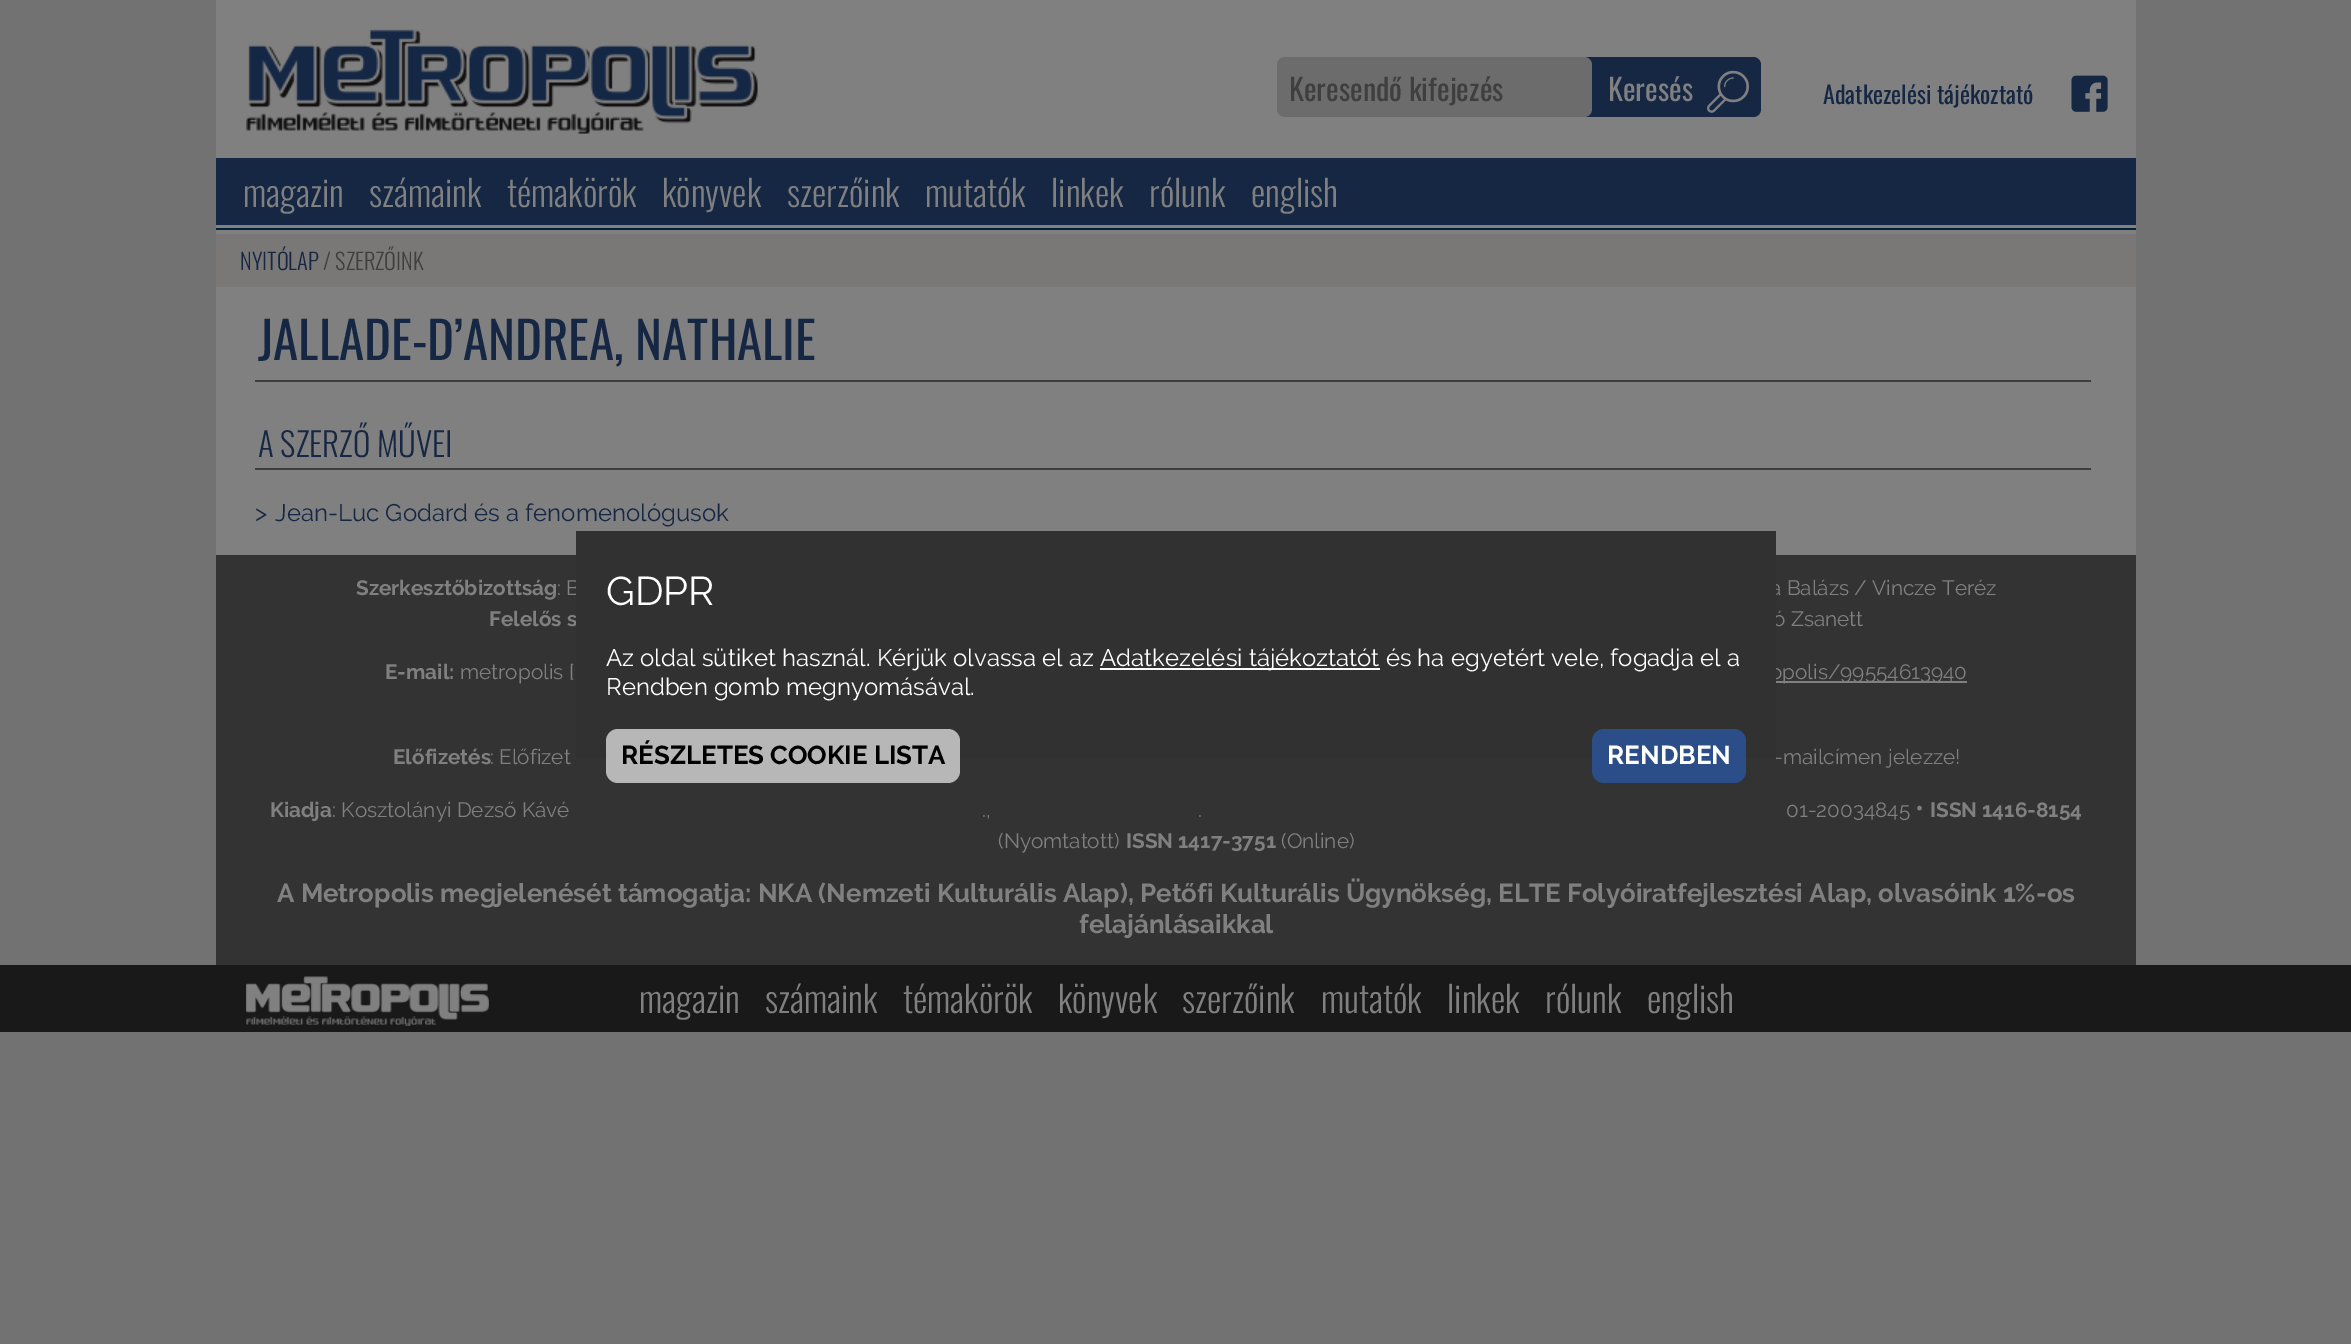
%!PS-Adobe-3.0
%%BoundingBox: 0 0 2351 1344
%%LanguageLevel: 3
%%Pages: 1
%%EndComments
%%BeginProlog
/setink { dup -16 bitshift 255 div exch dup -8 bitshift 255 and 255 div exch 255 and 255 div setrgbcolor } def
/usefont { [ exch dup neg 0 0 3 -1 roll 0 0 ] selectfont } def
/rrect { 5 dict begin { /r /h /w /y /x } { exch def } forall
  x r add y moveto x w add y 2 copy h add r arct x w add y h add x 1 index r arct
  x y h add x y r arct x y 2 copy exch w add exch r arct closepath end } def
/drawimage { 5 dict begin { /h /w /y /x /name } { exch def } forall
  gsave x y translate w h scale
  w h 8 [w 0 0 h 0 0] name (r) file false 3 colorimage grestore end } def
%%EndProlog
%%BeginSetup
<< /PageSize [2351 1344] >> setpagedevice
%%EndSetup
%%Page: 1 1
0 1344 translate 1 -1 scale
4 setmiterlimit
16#727272 setink
0 0 2351 1344 rectfill
16#808080 setink
216 0 1920 158 rectfill
16#162744 setink
216 158 1920 67 rectfill
(img1.raw) 246 29 512 105 drawimage
1584 57 moveto 1753 57 lineto 1757.5 57 1761 60.5 1761 65 curveto 1761 109 lineto 1761 113.5 1757.5 117 1753 117 curveto 1584 117 lineto closepath fill
16#6C6C6C setink
1277 57 315 60 8 rrect fill
/Oswald-Regular 30 usefont
16#3F3F3F setink
1289 101 moveto (Keresendő kifejezés) show
16#808080 setink
1608 101 moveto (Keresés) show
(img2.raw) 1707 70 42 43 drawimage
/Oswald-Regular 24 usefont
16#162744 setink
1823 104 moveto (Adatkezelési tájékoztató) show
(img3.raw) 2071 75 37 37 drawimage
/Oswald-Light 36 usefont
16#808080 setink
[
    [(magazin) 243 207]
    [(számaink) 369 207]
    [(témakörök) 507 207]
    [(könyvek) 662 207]
    [(szerzőink) 787 207]
    [(mutatók) 925 207]
    [(linkek) 1051 207]
    [(rólunk) 1149 207]
    [(english) 1251 207]
] { aload pop moveto show } forall
[
    [216 225 1920 9 16#808080]
    [216 228 1920 2 16#00213C]
    [216 234 1920 53 16#797877]
] { aload pop setink rectfill } forall
/Oswald-Light 22.5 usefont
16#162744 setink
240 270 moveto (NYITÓLAP) show
16#3F3F3F setink
323 270 moveto (/ SZERZŐINK) show
16#808080 setink
216 287 1920 268 rectfill
/Oswald-Regular 51 usefont
16#162744 setink
258 360 moveto (JALLADE-D’ANDREA, NATHALIE) show
16#3E3E3E setink
255 380 1836 2 rectfill
/Oswald-Light 33 usefont
16#162744 setink
258 457 moveto (A SZERZŐ MŰVEI) show
16#3E3E3E setink
255 468 1836 2 rectfill
/Raleway-Regular 24 usefont
16#162744 setink
255 521 moveto (>) show
275 521 moveto (Jean-Luc Godard és a fenomenológusok) show
16#333333 setink
216 555 1920 410 rectfill
/Raleway-Regular 20.75 usefont
16#808080 setink
557 595 moveto (: B) show
1770 595 moveto (a Balázs / Vincze Teréz) show
/Raleway-Bold 20.75 usefont
489 626 moveto (Felelős s) show
/Raleway-Regular 20.75 usefont
1773 626 moveto (ó Zsanett) show
1776 681 191 2 rectfill
1770 679 moveto (opolis/99554613940) show
1774 764 moveto (-mailcímen jelezze!) show
16#313131 setink
576 531 1200 228 rectfill
/Raleway-Regular 40 usefont
16#FFFFFF setink
606 605 moveto (GDPR) show
/Raleway-Regular 24 usefont
606 666 moveto (Az oldal sütiket használ. Kérjük olvassa el az) show
1100 668 280 2 rectfill
1100 666 moveto (Adatkezelési tájékoztatót és ha egyetért vele, fogadja el a) show
606 695 moveto (Rendben gomb megnyomásával.) show
16#B7B7B7 setink
606 729 354 54 12 rrect fill
/Raleway-Bold 25.88 usefont
16#000000 setink
621 764 moveto (RÉSZLETES COOKIE LISTA) show
16#2C4E88 setink
1592 729 154 54 12 rrect fill
16#FFFFFF setink
1607 764 moveto (RENDBEN) show
/Raleway-Bold 20.75 usefont
16#808080 setink
356 595 moveto (Szerkesztőbizottság) show
385 679 moveto (E-mail:) show
/Raleway-Regular 20.75 usefont
460 679 moveto (metropolis [) show
/Raleway-Bold 20.75 usefont
393 764 moveto (Előfizetés) show
/Raleway-Regular 20.75 usefont
490 764 moveto (: Előfizet) show
/Raleway-Bold 20.75 usefont
270 817 moveto (Kiadja) show
/Raleway-Regular 20.75 usefont
332 817 moveto (: Kosztolányi Dezső Kávé) show
1786 817 moveto (01-20034845) show
/Raleway-Regular 25.88 usefont
1915 817 moveto (•) show
/Raleway-Bold 20.75 usefont
1930 817 moveto (ISSN 1416-8154) show
/Raleway-Regular 20.75 usefont
[
    [(.,) 982 817]
    [(.) 1198 817]
    [(\(Nyomtatott\)) 998 848]
] { aload pop moveto show } forall
/Raleway-Bold 20.75 usefont
1126 848 moveto (ISSN 1417-3751) show
/Raleway-Regular 20.75 usefont
1281 848 moveto (\(Online\)) show
/Raleway-Bold 25.88 usefont
277 902 moveto (A Metropolis megjelenését támogatja: NKA \(Nemzeti Kulturális Alap\), Petőfi Kulturális Ügynökség, ELTE Folyóiratfejlesztési Alap, olvasóink 1%-os) show
1079 933 moveto (felajánlásaikkal) show
16#191919 setink
0 965 2351 67 rectfill
(img4.raw) 246 976 243 50 drawimage
/Oswald-Light 36 usefont
16#808080 setink
[
    [(magazin) 639 1013]
    [(számaink) 765 1013]
    [(témakörök) 903 1013]
    [(könyvek) 1058 1013]
    [(szerzőink) 1182 1013]
    [(mutatók) 1321 1013]
    [(linkek) 1447 1013]
    [(rólunk) 1545 1013]
    [(english) 1647 1013]
] { aload pop moveto show } forall
showpage
%%EOF
